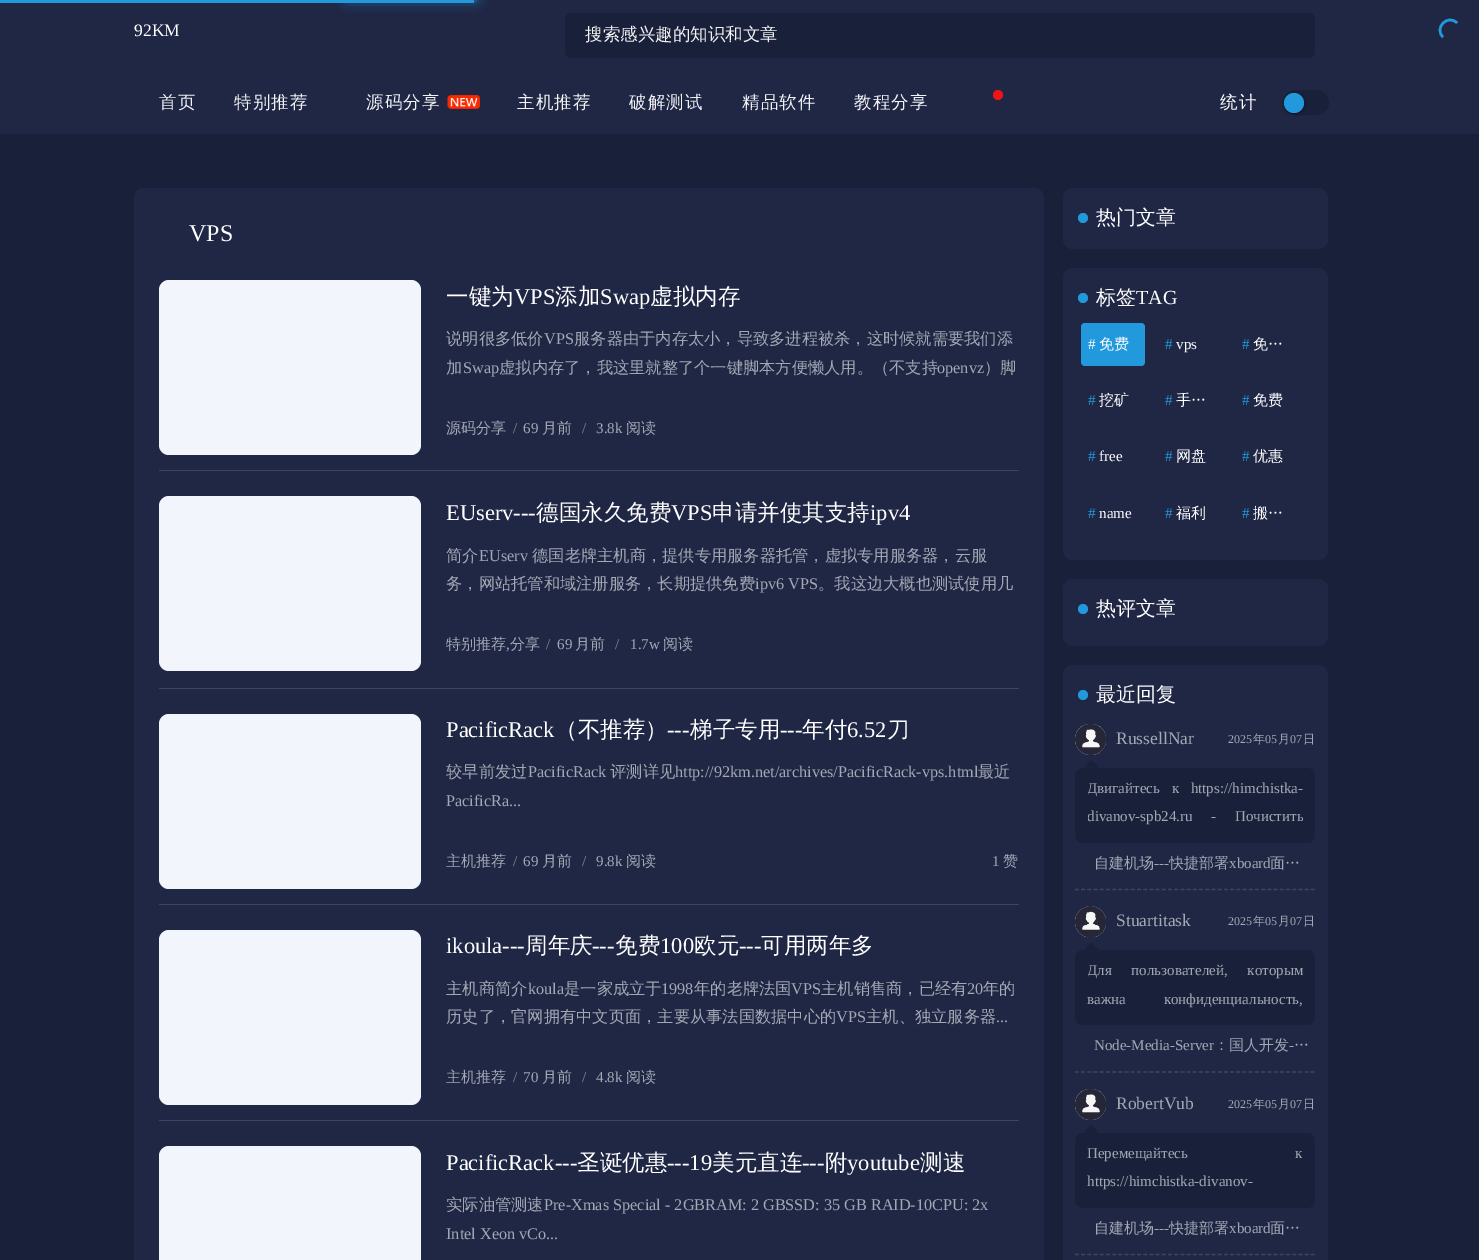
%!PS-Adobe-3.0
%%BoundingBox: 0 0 1479 1260
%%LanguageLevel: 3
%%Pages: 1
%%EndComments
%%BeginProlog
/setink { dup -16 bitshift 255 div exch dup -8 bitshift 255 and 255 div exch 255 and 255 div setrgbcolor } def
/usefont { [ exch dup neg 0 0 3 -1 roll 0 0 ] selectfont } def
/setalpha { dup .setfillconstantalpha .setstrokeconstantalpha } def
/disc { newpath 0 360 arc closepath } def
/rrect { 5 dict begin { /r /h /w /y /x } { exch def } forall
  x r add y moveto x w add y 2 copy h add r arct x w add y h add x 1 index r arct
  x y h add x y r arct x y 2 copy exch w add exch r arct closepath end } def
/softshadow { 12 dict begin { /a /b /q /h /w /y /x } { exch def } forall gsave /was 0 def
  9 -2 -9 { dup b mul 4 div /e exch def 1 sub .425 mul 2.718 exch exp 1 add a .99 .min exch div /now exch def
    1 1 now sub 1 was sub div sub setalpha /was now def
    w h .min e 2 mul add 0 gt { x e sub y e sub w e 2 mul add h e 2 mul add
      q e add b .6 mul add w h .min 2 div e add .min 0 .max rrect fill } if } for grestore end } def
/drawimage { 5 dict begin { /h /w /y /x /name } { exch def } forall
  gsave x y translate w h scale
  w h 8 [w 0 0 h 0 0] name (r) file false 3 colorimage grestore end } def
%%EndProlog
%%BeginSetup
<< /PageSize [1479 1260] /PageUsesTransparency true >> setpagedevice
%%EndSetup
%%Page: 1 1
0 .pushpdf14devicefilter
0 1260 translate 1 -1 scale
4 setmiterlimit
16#192039 setink
0 0 1479 1260 rectfill
16#1F2745 setink
0 0 1479 134 rectfill
16#2299DD setink
0 0 474 3 rectfill
349 -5 125 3 0 3 1 softshadow
349 -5 125 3 0 6.5 1 softshadow
2.5 setlinewidth
1443 37 moveto 1433.5 28 1448 13.5 1457 23 curveto stroke
/LiberationSerif-Regular 17.5 usefont
16#FFFFFF setink
134 36 moveto (92KM) show
16#192039 setink
571 13 moveto 1245 13 lineto 1245 58 lineto 571 58 lineto 567.5 58 565 55.5 565 52 curveto 565 19 lineto 565 15.5 567.5 13 571 13 curveto closepath fill
/WenQuanYiZenHei-Medium 17.5 usefont
16#F2F2F5 setink
585 40 moveto (搜索感兴趣的知识和文章) show
16#192039 setink
1245 13 moveto 1309 13 lineto 1312.5 13 1315 15.5 1315 19 curveto 1315 52 lineto 1315 55.5 1312.5 58 1309 58 curveto 1245 58 lineto closepath fill
16#1D2542 setink
134 70 1212 1 rectfill
16#F2F2F5 setink
159 108 moveto 1 0 (首页) ashow
234 108 moveto 1 0 (特别推荐) ashow
366 108 moveto 1 0 (源码分享) ashow
(img1.raw) 447 95 33 14 drawimage
517 108 moveto 1 0 (主机推荐) ashow
629 108 moveto 1 0 (破解测试) ashow
742 108 moveto 1 0 (精品软件) ashow
854 108 moveto 1 0 (教程分享) ashow
16#F01414 setink
998 95 5 disc fill
16#FFFFFF setink
1220 108 moveto 1 0 (统计) ashow
16#192039 setink
1 setlinewidth
1283.5 90.5 44 24 12 rrect stroke
1284 91 45 23 11.5 rrect fill
16#000000 setink
1284 94 20 20 10 2 0.4 softshadow
16#2299DD setink
1294 103 10 disc fill
16#1F2745 setink
134 188 910 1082 10 rrect fill
/LiberationSerif-Regular 24 usefont
16#FFFFFF setink
189 241 moveto (VPS) show
16#3C4560 setink
159 470 860 1 rectfill
16#F2F6FC setink
159 280 262 175 10 rrect fill
/WenQuanYiZenHei-Medium 22.5 usefont
16#FFFFFF setink
446 304 moveto (一键为) show
/LiberationSerif-Regular 22.5 usefont
514 304 moveto (VPS) show
/WenQuanYiZenHei-Medium 22.5 usefont
555 304 moveto (添加) show
/LiberationSerif-Regular 22.5 usefont
600 304 moveto (Swap) show
/WenQuanYiZenHei-Medium 22.5 usefont
650 304 moveto (虚拟内存) show
/WenQuanYiZenHei-Medium 16.25 usefont
16#A4A8B4 setink
446 344 moveto (说明很多低价) show
/LiberationSerif-Regular 16.25 usefont
544 344 moveto (VPS) show
/WenQuanYiZenHei-Medium 16.25 usefont
574 344 moveto (服务器由于内存太小，导致多进程被杀，这时候就需要我们添) show
446 373 moveto (加) show
/LiberationSerif-Regular 16.25 usefont
463 373 moveto (Swap) show
/WenQuanYiZenHei-Medium 16.25 usefont
499 373 moveto (虚拟内存了，我这里就整了个一键脚本方便懒人用。（不支持) show
/LiberationSerif-Regular 16.25 usefont
937 373 moveto (openvz) show
/WenQuanYiZenHei-Medium 16.25 usefont
984 373 moveto (）脚) show
/WenQuanYiZenHei-Medium 15 usefont
446 433 moveto (源码分享) show
/LiberationSerif-Regular 15 usefont
16#828A92 setink
513 433 moveto (/) show
16#A4A8B4 setink
523 433 moveto (69) show
/WenQuanYiZenHei-Medium 15 usefont
542 433 moveto (月前) show
/LiberationSerif-Regular 15 usefont
16#828A92 setink
582 433 moveto (/) show
16#A4A8B4 setink
596 433 moveto (3.8k) show
/WenQuanYiZenHei-Medium 15 usefont
626 433 moveto (阅读) show
16#3C4560 setink
159 688 860 1 rectfill
16#F2F6FC setink
159 496 262 175 10 rrect fill
/LiberationSerif-Regular 22.5 usefont
16#FFFFFF setink
446 520 moveto (EUserv---) show
/WenQuanYiZenHei-Medium 22.5 usefont
536 520 moveto (德国永久免费) show
/LiberationSerif-Regular 22.5 usefont
671 520 moveto (VPS) show
/WenQuanYiZenHei-Medium 22.5 usefont
712 520 moveto (申请并使其支持) show
/LiberationSerif-Regular 22.5 usefont
870 520 moveto (ipv4) show
/WenQuanYiZenHei-Medium 16.25 usefont
16#A4A8B4 setink
446 561 moveto (简介) show
/LiberationSerif-Regular 16.25 usefont
479 561 moveto (EUserv) show
/WenQuanYiZenHei-Medium 16.25 usefont
532 561 moveto (德国老牌主机商，提供专用服务器托管，虚拟专用服务器，云服) show
446 589 moveto (务，网站托管和域注册服务，长期提供免费) show
/LiberationSerif-Regular 16.25 usefont
755 589 moveto (ipv6 VPS) show
/WenQuanYiZenHei-Medium 16.25 usefont
818 589 moveto (。我这边大概也测试使用几) show
/WenQuanYiZenHei-Medium 15 usefont
446 649 moveto (特别推荐) show
/LiberationSerif-Regular 15 usefont
506 649 moveto (,) show
/WenQuanYiZenHei-Medium 15 usefont
510 649 moveto (分享) show
/LiberationSerif-Regular 15 usefont
16#828A92 setink
546 649 moveto (/) show
16#A4A8B4 setink
557 649 moveto (69) show
/WenQuanYiZenHei-Medium 15 usefont
575 649 moveto (月前) show
/LiberationSerif-Regular 15 usefont
16#828A92 setink
615 649 moveto (/) show
16#A4A8B4 setink
630 649 moveto (1.7w) show
/WenQuanYiZenHei-Medium 15 usefont
663 649 moveto (阅读) show
16#3C4560 setink
159 904 860 1 rectfill
16#F2F6FC setink
159 714 262 175 10 rrect fill
/LiberationSerif-Regular 22.5 usefont
16#FFFFFF setink
446 737 moveto (PacificRack) show
/WenQuanYiZenHei-Medium 22.5 usefont
555 737 moveto (（不推荐）) show
/LiberationSerif-Regular 22.5 usefont
667 737 moveto (---) show
/WenQuanYiZenHei-Medium 22.5 usefont
690 737 moveto (梯子专用) show
/LiberationSerif-Regular 22.5 usefont
780 737 moveto (---) show
/WenQuanYiZenHei-Medium 22.5 usefont
802 737 moveto (年付) show
/LiberationSerif-Regular 22.5 usefont
847 737 moveto (6.52) show
/WenQuanYiZenHei-Medium 22.5 usefont
887 737 moveto (刀) show
/WenQuanYiZenHei-Medium 16.25 usefont
16#A4A8B4 setink
446 777 moveto (较早前发过) show
/LiberationSerif-Regular 16.25 usefont
528 777 moveto (PacificRack) show
/WenQuanYiZenHei-Medium 16.25 usefont
610 777 moveto (评测详见) show
/LiberationSerif-Regular 16.25 usefont
675 777 moveto (http://92km.net/archives/PacificRack-vps.html) show
/WenQuanYiZenHei-Medium 16.25 usefont
978 777 moveto (最近) show
/LiberationSerif-Regular 16.25 usefont
446 806 moveto (PacificRa...) show
/WenQuanYiZenHei-Medium 15 usefont
446 866 moveto (主机推荐) show
/LiberationSerif-Regular 15 usefont
16#828A92 setink
513 866 moveto (/) show
16#A4A8B4 setink
523 866 moveto (69) show
/WenQuanYiZenHei-Medium 15 usefont
542 866 moveto (月前) show
/LiberationSerif-Regular 15 usefont
16#828A92 setink
582 866 moveto (/) show
16#A4A8B4 setink
596 866 moveto (9.8k) show
/WenQuanYiZenHei-Medium 15 usefont
626 866 moveto (阅读) show
/LiberationSerif-Regular 15 usefont
992 866 moveto (1) show
/WenQuanYiZenHei-Medium 15 usefont
1003 866 moveto (赞) show
16#3C4560 setink
159 1120 860 1 rectfill
16#F2F6FC setink
159 930 262 175 10 rrect fill
/LiberationSerif-Regular 22.5 usefont
16#FFFFFF setink
446 953 moveto (ikoula---) show
/WenQuanYiZenHei-Medium 22.5 usefont
525 953 moveto (周年庆) show
/LiberationSerif-Regular 22.5 usefont
592 953 moveto (---) show
/WenQuanYiZenHei-Medium 22.5 usefont
615 953 moveto (免费) show
/LiberationSerif-Regular 22.5 usefont
660 953 moveto (100) show
/WenQuanYiZenHei-Medium 22.5 usefont
694 953 moveto (欧元) show
/LiberationSerif-Regular 22.5 usefont
739 953 moveto (---) show
/WenQuanYiZenHei-Medium 22.5 usefont
761 953 moveto (可用两年多) show
/WenQuanYiZenHei-Medium 16.25 usefont
16#A4A8B4 setink
446 994 moveto (主机商简介) show
/LiberationSerif-Regular 16.25 usefont
528 994 moveto (koula) show
/WenQuanYiZenHei-Medium 16.25 usefont
564 994 moveto (是一家成立于) show
/LiberationSerif-Regular 16.25 usefont
661 994 moveto (1998) show
/WenQuanYiZenHei-Medium 16.25 usefont
694 994 moveto (年的老牌法国) show
/LiberationSerif-Regular 16.25 usefont
791 994 moveto (VPS) show
/WenQuanYiZenHei-Medium 16.25 usefont
821 994 moveto (主机销售商，已经有) show
/LiberationSerif-Regular 16.25 usefont
967 994 moveto (20) show
/WenQuanYiZenHei-Medium 16.25 usefont
983 994 moveto (年的) show
446 1022 moveto (历史了，官网拥有中文页面，主要从事法国数据中心的) show
/LiberationSerif-Regular 16.25 usefont
836 1022 moveto (VPS) show
/WenQuanYiZenHei-Medium 16.25 usefont
866 1022 moveto (主机、独立服务器) show
/LiberationSerif-Regular 16.25 usefont
996 1022 moveto (...) show
/WenQuanYiZenHei-Medium 15 usefont
446 1082 moveto (主机推荐) show
/LiberationSerif-Regular 15 usefont
16#828A92 setink
513 1082 moveto (/) show
16#A4A8B4 setink
523 1082 moveto (70) show
/WenQuanYiZenHei-Medium 15 usefont
542 1082 moveto (月前) show
/LiberationSerif-Regular 15 usefont
16#828A92 setink
582 1082 moveto (/) show
16#A4A8B4 setink
596 1082 moveto (4.8k) show
/WenQuanYiZenHei-Medium 15 usefont
626 1082 moveto (阅读) show
16#F2F6FC setink
159 1146 262 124 10 rrect fill
/LiberationSerif-Regular 22.5 usefont
16#FFFFFF setink
446 1170 moveto (PacificRack---) show
/WenQuanYiZenHei-Medium 22.5 usefont
577 1170 moveto (圣诞优惠) show
/LiberationSerif-Regular 22.5 usefont
667 1170 moveto (---19) show
/WenQuanYiZenHei-Medium 22.5 usefont
712 1170 moveto (美元直连) show
/LiberationSerif-Regular 22.5 usefont
802 1170 moveto (---) show
/WenQuanYiZenHei-Medium 22.5 usefont
825 1170 moveto (附) show
/LiberationSerif-Regular 22.5 usefont
847 1170 moveto (youtube) show
/WenQuanYiZenHei-Medium 22.5 usefont
920 1170 moveto (测速) show
/WenQuanYiZenHei-Medium 16.25 usefont
16#A4A8B4 setink
446 1210 moveto (实际油管测速) show
/LiberationSerif-Regular 16.25 usefont
544 1210 moveto (Pre-Xmas Special - 2GBRAM: 2 GBSSD: 35 GB RAID-10CPU: 2x) show
446 1239 moveto (Intel Xeon vCo...) show
16#1F2745 setink
1063 188 265 61 10 rrect fill
16#2299DD setink
1083 218 5 disc fill
/WenQuanYiZenHei-Medium 20 usefont
16#FFFFFF setink
1096 224 moveto (热门文章) show
16#1F2745 setink
1063 268 265 292 10 rrect fill
16#2299DD setink
1083 298 5 disc fill
16#FFFFFF setink
1096 304 moveto (标签) show
/LiberationSerif-Regular 20 usefont
1136 304 moveto (TAG) show
16#2299DD setink
1081 323 64 43 4 rrect fill
/LiberationSerif-Regular 15 usefont
16#FFFFFF setink
1088 349 moveto (#) show
/WenQuanYiZenHei-Medium 15 usefont
1099 349 moveto (免费) show
/LiberationSerif-Regular 15 usefont
16#2299DD setink
1165 349 moveto (#) show
16#FFFFFF setink
1176 349 moveto (vps) show
16#2299DD setink
1242 349 moveto (#) show
/WenQuanYiZenHei-Medium 15 usefont
16#FFFFFF setink
1253 349 moveto (免…) show
/LiberationSerif-Regular 15 usefont
16#2299DD setink
1088 405 moveto (#) show
/WenQuanYiZenHei-Medium 15 usefont
16#FFFFFF setink
1099 405 moveto (挖矿) show
/LiberationSerif-Regular 15 usefont
16#2299DD setink
1165 405 moveto (#) show
/WenQuanYiZenHei-Medium 15 usefont
16#FFFFFF setink
1176 405 moveto (手…) show
/LiberationSerif-Regular 15 usefont
16#2299DD setink
1242 405 moveto (#) show
/WenQuanYiZenHei-Medium 15 usefont
16#FFFFFF setink
1253 405 moveto (免费) show
/LiberationSerif-Regular 15 usefont
16#2299DD setink
1088 461 moveto (#) show
16#FFFFFF setink
1099 461 moveto (free) show
16#2299DD setink
1165 461 moveto (#) show
/WenQuanYiZenHei-Medium 15 usefont
16#FFFFFF setink
1176 461 moveto (网盘) show
/LiberationSerif-Regular 15 usefont
16#2299DD setink
1242 461 moveto (#) show
/WenQuanYiZenHei-Medium 15 usefont
16#FFFFFF setink
1253 461 moveto (优惠) show
/LiberationSerif-Regular 15 usefont
16#2299DD setink
1088 518 moveto (#) show
16#FFFFFF setink
1099 518 moveto (name) show
16#2299DD setink
1165 518 moveto (#) show
/WenQuanYiZenHei-Medium 15 usefont
16#FFFFFF setink
1176 518 moveto (福利) show
/LiberationSerif-Regular 15 usefont
16#2299DD setink
1242 518 moveto (#) show
/WenQuanYiZenHei-Medium 15 usefont
16#FFFFFF setink
1253 518 moveto (搬…) show
16#1F2745 setink
1063 579 265 67 10 rrect fill
16#2299DD setink
1083 609 5 disc fill
/WenQuanYiZenHei-Medium 20 usefont
16#FFFFFF setink
1096 615 moveto (热评文章) show
16#1F2745 setink
1063 665 265 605 10 rrect fill
16#2299DD setink
1083 695 5 disc fill
16#FFFFFF setink
1096 701 moveto (最近回复) show
16#3C4560 setink
1.2 setlinewidth
[3.75 2.46] 0 setdash
1075 889.5 moveto 1315 889.5 lineto stroke
(img2.raw) 1075 724 32 31 drawimage
/LiberationSerif-Regular 17.5 usefont
16#A4A8B4 setink
1116 744 moveto (RussellNar) show
/LiberationSerif-Regular 12 usefont
1228 743 moveto (2025) show
/WenQuanYiZenHei-Medium 12 usefont
1253 743 moveto (年) show
/LiberationSerif-Regular 12 usefont
1265 743 moveto (05) show
/WenQuanYiZenHei-Medium 12 usefont
1278 743 moveto (月) show
/LiberationSerif-Regular 12 usefont
1290 743 moveto (07) show
/WenQuanYiZenHei-Medium 12 usefont
1303 743 moveto (日) show
16#192039 setink
1075 768 240 75 8 rrect fill
1099 767.5 moveto 1084 767.5 lineto 1091 760 lineto closepath fill
gsave
1088 774 215 62 rectclip
/LiberationSerif-Regular 15 usefont
16#A4A8B4 setink
1087 793 moveto 8 0 32 (Двигайтесь к https://himchistka-) widthshow
1087 821 moveto 15 0 32 (divanov-spb24.ru - Почистить) widthshow
grestore
/WenQuanYiZenHei-Medium 15 usefont
16#A4A8B4 setink
1094 868 moveto (自建机场) show
/LiberationSerif-Regular 15 usefont
1154 868 moveto (---) show
/WenQuanYiZenHei-Medium 15 usefont
1169 868 moveto (快捷部署) show
/LiberationSerif-Regular 15 usefont
1229 868 moveto (xboard) show
/WenQuanYiZenHei-Medium 15 usefont
1270 868 moveto (面…) show
16#3C4560 setink
1075 1072 moveto 1315 1072 lineto stroke
(img3.raw) 1075 906 32 32 drawimage
/LiberationSerif-Regular 17.5 usefont
16#A4A8B4 setink
1116 926 moveto (Stuartitask) show
/LiberationSerif-Regular 12 usefont
1228 925 moveto (2025) show
/WenQuanYiZenHei-Medium 12 usefont
1253 925 moveto (年) show
/LiberationSerif-Regular 12 usefont
1265 925 moveto (05) show
/WenQuanYiZenHei-Medium 12 usefont
1278 925 moveto (月) show
/LiberationSerif-Regular 12 usefont
1290 925 moveto (07) show
/WenQuanYiZenHei-Medium 12 usefont
1303 925 moveto (日) show
16#192039 setink
1075 950 240 75 8 rrect fill
1099 950 moveto 1084 950 lineto 1091 942.5 lineto closepath fill
gsave
1088 956 215 63 rectclip
/LiberationSerif-Regular 15 usefont
16#A4A8B4 setink
1087 975 moveto 16 0 32 (Для пользователей, которым) widthshow
grestore
/LiberationSerif-Regular 15 usefont
16#A4A8B4 setink
1087 1004 moveto 34 0 32 (важна конфиденциальность,) widthshow
1094 1050 moveto (Node-Media-Server) show
/WenQuanYiZenHei-Medium 15 usefont
1214 1050 moveto (：国人开发) show
1294 1050 moveto (…) show
/LiberationSerif-Regular 15 usefont
1289 1050 moveto (-) show
16#3C4560 setink
1075 1254.5 moveto 1315 1254.5 lineto stroke
(img2.raw) 1075 1089 32 31 drawimage
/LiberationSerif-Regular 17.5 usefont
16#A4A8B4 setink
1116 1109 moveto (RobertVub) show
/LiberationSerif-Regular 12 usefont
1228 1108 moveto (2025) show
/WenQuanYiZenHei-Medium 12 usefont
1253 1108 moveto (年) show
/LiberationSerif-Regular 12 usefont
1265 1108 moveto (05) show
/WenQuanYiZenHei-Medium 12 usefont
1278 1108 moveto (月) show
/LiberationSerif-Regular 12 usefont
1290 1108 moveto (07) show
/WenQuanYiZenHei-Medium 12 usefont
1303 1108 moveto (日) show
16#192039 setink
1075 1133 240 75 8 rrect fill
1099 1132.5 moveto 1084 1132.5 lineto 1091 1125 lineto closepath fill
/LiberationSerif-Regular 15 usefont
16#A4A8B4 setink
1087 1158 moveto 104 0 32 (Перемещайтесь к) widthshow
1087 1186 moveto (https://himchistka-divanov-) show
/WenQuanYiZenHei-Medium 15 usefont
1094 1233 moveto (自建机场) show
/LiberationSerif-Regular 15 usefont
1154 1233 moveto (---) show
/WenQuanYiZenHei-Medium 15 usefont
1169 1233 moveto (快捷部署) show
/LiberationSerif-Regular 15 usefont
1229 1233 moveto (xboard) show
/WenQuanYiZenHei-Medium 15 usefont
1270 1233 moveto (面…) show
.poppdf14devicefilter showpage
%%EOF
